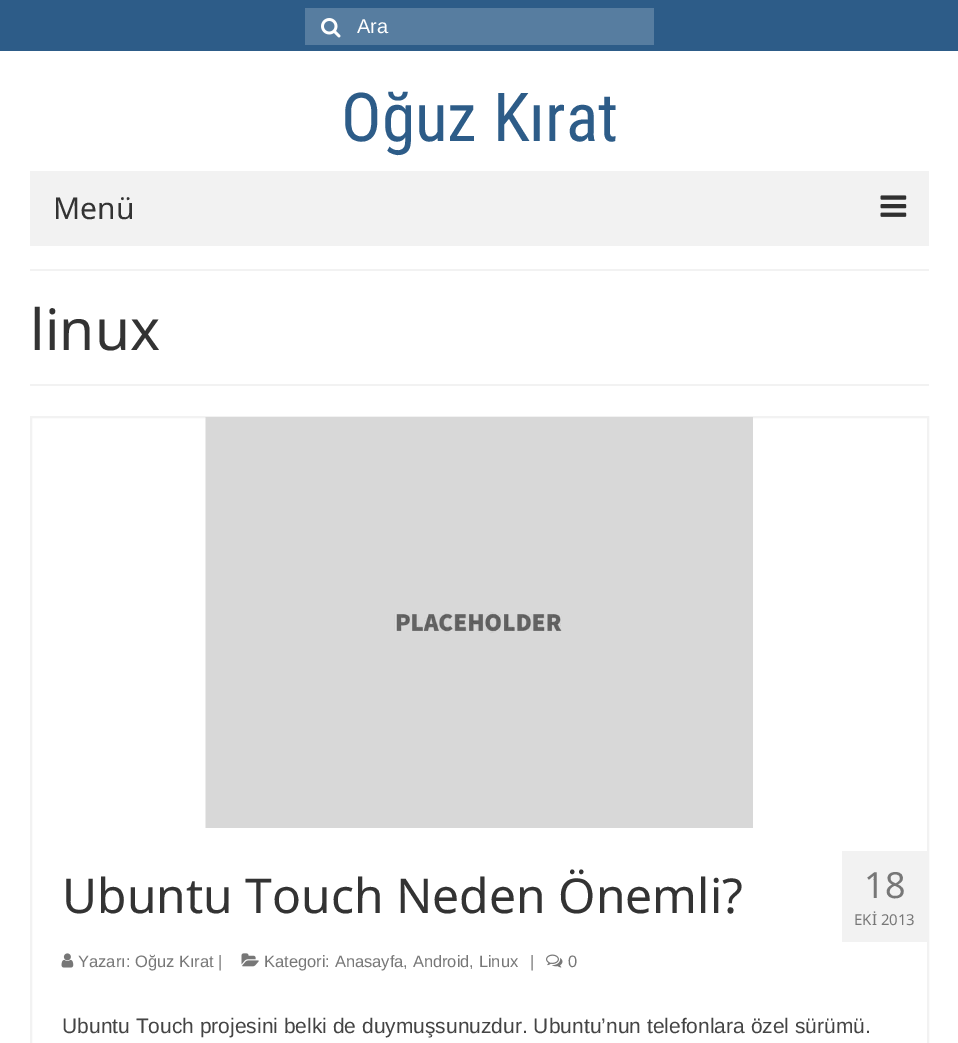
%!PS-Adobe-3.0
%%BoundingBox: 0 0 958 1043
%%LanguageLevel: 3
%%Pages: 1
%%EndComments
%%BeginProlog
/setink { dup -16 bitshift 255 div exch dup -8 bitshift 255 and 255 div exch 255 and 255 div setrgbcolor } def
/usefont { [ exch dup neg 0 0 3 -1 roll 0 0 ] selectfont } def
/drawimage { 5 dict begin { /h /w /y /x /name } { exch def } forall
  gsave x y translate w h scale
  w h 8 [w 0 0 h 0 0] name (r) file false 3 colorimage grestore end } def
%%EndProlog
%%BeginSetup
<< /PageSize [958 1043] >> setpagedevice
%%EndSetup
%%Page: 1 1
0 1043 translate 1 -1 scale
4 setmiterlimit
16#FFFFFF setink
0 0 958 1043 rectfill
16#2D5C88 setink
0 0 958 51 rectfill
16#577DA0 setink
305 8 349 37 rectfill
(img1.raw) 321 18 20 20 drawimage
/LiberationSans-Regular 20 usefont
16#FFFFFF setink
357 33 moveto (Ara) show
/RobotoCondensed-Regular 67.5 usefont
16#2D5C88 setink
341 141 moveto (Oğuz Kırat) show
16#F2F2F2 setink
30 171 899 75 rectfill
/NotoSans-Regular 30 usefont
16#333333 setink
53 219 moveto (Menü) show
(img2.raw) 880 195 27 22 drawimage
16#F2F2F2 setink
30 269 899 2 rectfill
30 384 899 2 rectfill
/NotoSans-Regular 57 usefont
16#333333 setink
30 350 moveto (linux) show
16#F2F2F2 setink
2 setlinewidth
31 417 897 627 rectstroke
(img3.raw) 205 417 548 411 drawimage
/NotoSans-Regular 48 usefont
16#333333 setink
62 913 moveto (Ubuntu Touch Neden Önemli?) show
(img4.raw) 61 953 13 15 drawimage
/LiberationSans-Regular 16.5 usefont
16#777777 setink
78 967 moveto (Yazarı: Oğuz Kırat |) show
(img5.raw) 241 953 18 14 drawimage
264 967 moveto (Kategori: Anasayfa, Android, Linux) show
530 967 moveto (|) show
(img6.raw) 546 954 17 14 drawimage
568 967 moveto (0) show
16#F2F2F2 setink
842 851 85 91 rectfill
/NotoSans-Regular 36 usefont
16#777777 setink
864 898 moveto (18) show
/NotoSans-Regular 15 usefont
854 925 moveto (EKİ 2013) show
/LiberationSans-Regular 21 usefont
16#444444 setink
62 1033 moveto (Ubuntu Touch projesini belki de duymuşsunuzdur. Ubuntu’nun telefonlara özel sürümü.) show
showpage
%%EOF
